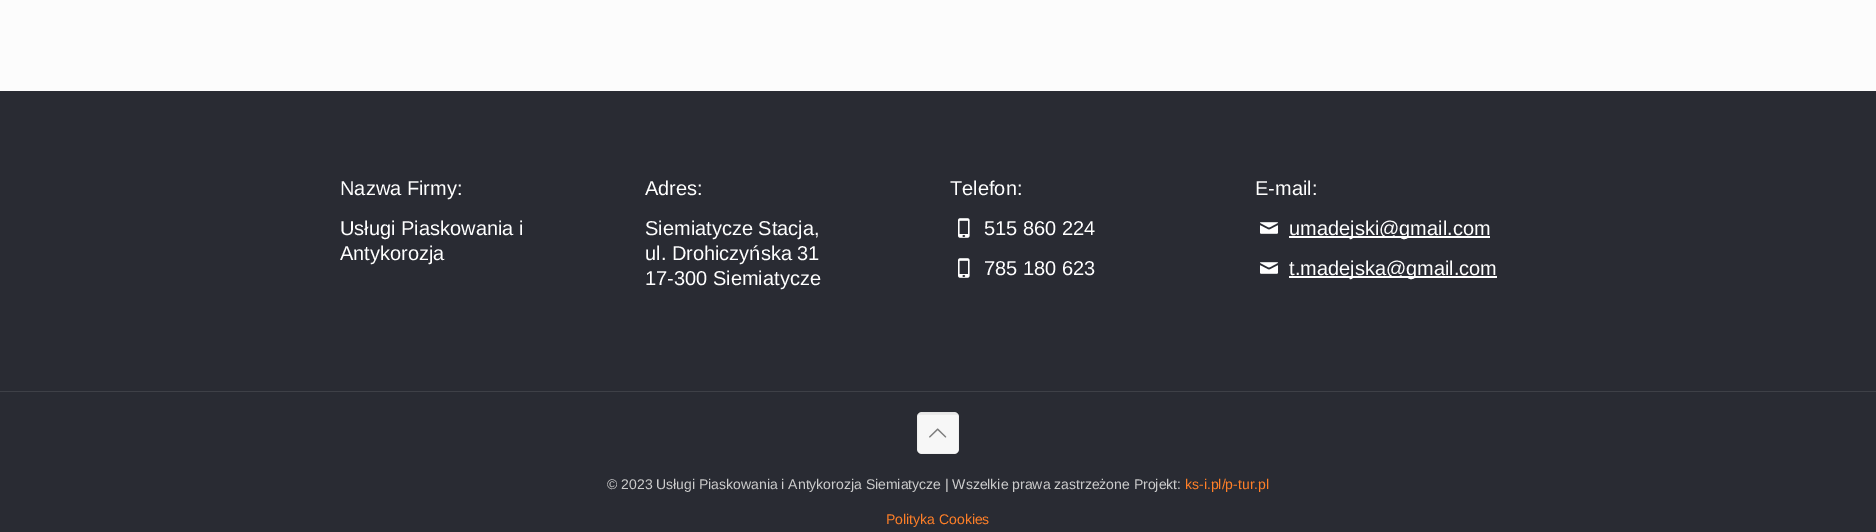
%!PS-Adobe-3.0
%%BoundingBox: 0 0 1876 532
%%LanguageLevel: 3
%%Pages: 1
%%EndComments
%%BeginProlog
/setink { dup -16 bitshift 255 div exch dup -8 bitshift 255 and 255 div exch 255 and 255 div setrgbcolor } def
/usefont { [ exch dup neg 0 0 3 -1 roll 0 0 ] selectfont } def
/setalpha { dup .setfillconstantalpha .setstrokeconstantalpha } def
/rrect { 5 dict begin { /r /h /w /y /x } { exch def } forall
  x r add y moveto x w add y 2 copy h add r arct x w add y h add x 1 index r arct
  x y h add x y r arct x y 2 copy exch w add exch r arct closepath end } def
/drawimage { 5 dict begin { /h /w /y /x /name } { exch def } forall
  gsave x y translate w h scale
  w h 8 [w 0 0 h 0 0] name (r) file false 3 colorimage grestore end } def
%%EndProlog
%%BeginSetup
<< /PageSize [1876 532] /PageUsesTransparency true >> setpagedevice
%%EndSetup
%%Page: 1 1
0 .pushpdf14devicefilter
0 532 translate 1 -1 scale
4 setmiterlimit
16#FCFCFC setink
0 0 1876 532 rectfill
16#292B33 setink
0 91 1876 441 rectfill
/LiberationSans-Regular 20 usefont
16#FFFFFF setink
[
    [(Nazwa Firmy:) 340 195]
    [(Usługi Piaskowania i) 340 235]
    [(Antykorozja) 340 260]
    [(Adres:) 645 195]
    [(Siemiatycze Stacja,) 645 235]
    [(ul. Drohiczyńska 31) 645 260]
    [(17-300 Siemiatycze) 645 285]
    [(Telefon:) 950 195]
] { aload pop moveto show } forall
(img1.raw) 958 218 12 20 drawimage
984 235 moveto (515 860 224) show
(img1.raw) 958 258 12 20 drawimage
984 275 moveto (785 180 623) show
1255 195 moveto (E-mail:) show
(img2.raw) 1260 222 18 12 drawimage
1289 236 201 2 rectfill
1289 235 moveto (umadejski@gmail.com) show
(img2.raw) 1260 262 18 12 drawimage
1289 276 208 2 rectfill
1289 275 moveto (t.madejska@gmail.com) show
16#3E4047 setink
0 391 1876 1 rectfill
16#F7F7F7 setink
917 412 42 42 5 rrect fill
0.05 setalpha
16#000000 setink
918 412 40 3 rectfill
0.03 setalpha
917.5 412.5 41 41 rectstroke
1 setalpha
(img3.raw) 929 428 18 10 drawimage
/LiberationSans-Regular 14 usefont
16#CCCCCC setink
607 489 moveto (© 2023 Usługi Piaskowania i Antykorozja Siemiatycze | Wszelkie prawa zastrzeżone Projekt:) show
16#FF7F27 setink
1185 489 moveto (ks-i.pl/p-tur.pl) show
886 524 moveto (Polityka Cookies) show
.poppdf14devicefilter showpage
%%EOF
